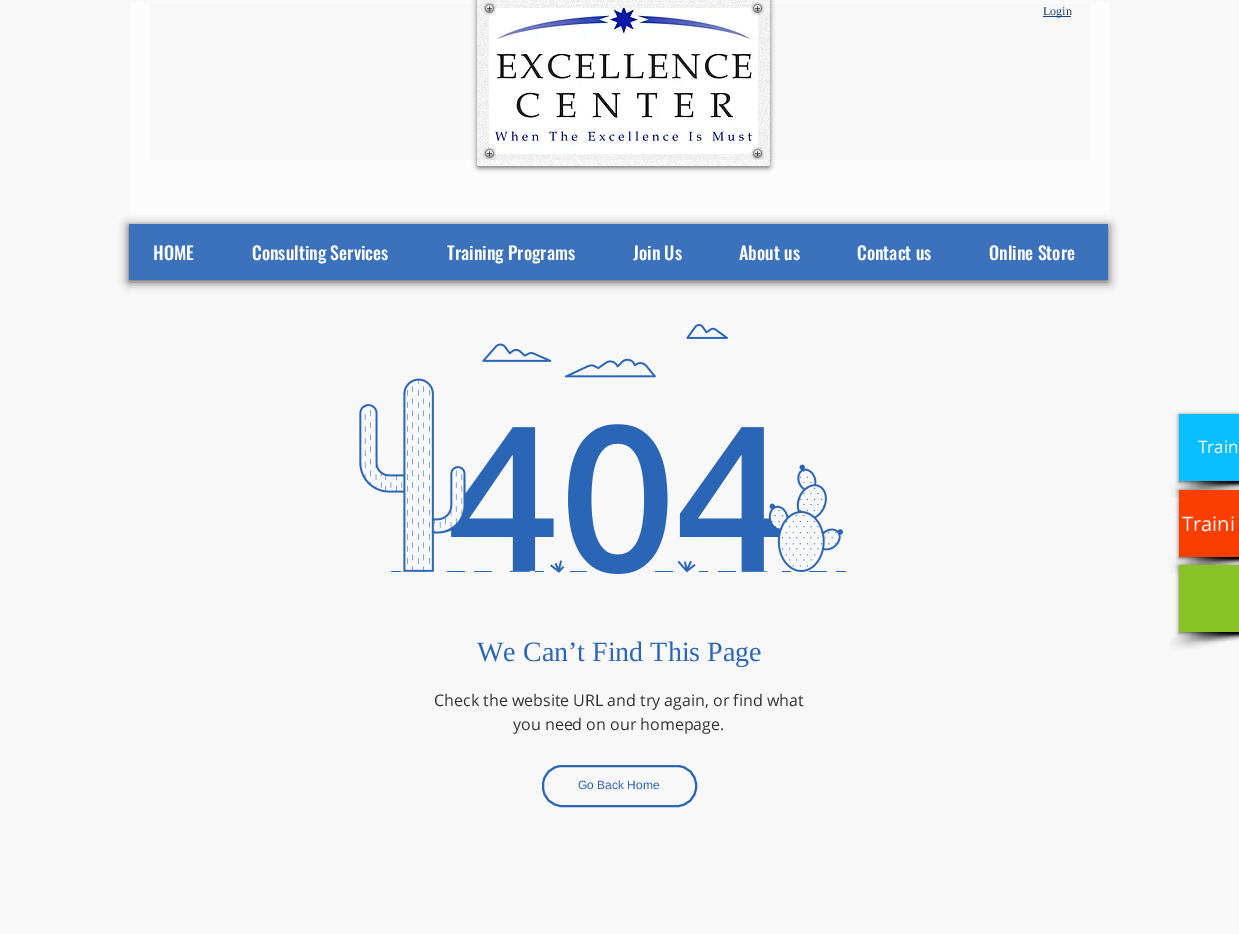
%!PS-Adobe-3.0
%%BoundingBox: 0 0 1239 934
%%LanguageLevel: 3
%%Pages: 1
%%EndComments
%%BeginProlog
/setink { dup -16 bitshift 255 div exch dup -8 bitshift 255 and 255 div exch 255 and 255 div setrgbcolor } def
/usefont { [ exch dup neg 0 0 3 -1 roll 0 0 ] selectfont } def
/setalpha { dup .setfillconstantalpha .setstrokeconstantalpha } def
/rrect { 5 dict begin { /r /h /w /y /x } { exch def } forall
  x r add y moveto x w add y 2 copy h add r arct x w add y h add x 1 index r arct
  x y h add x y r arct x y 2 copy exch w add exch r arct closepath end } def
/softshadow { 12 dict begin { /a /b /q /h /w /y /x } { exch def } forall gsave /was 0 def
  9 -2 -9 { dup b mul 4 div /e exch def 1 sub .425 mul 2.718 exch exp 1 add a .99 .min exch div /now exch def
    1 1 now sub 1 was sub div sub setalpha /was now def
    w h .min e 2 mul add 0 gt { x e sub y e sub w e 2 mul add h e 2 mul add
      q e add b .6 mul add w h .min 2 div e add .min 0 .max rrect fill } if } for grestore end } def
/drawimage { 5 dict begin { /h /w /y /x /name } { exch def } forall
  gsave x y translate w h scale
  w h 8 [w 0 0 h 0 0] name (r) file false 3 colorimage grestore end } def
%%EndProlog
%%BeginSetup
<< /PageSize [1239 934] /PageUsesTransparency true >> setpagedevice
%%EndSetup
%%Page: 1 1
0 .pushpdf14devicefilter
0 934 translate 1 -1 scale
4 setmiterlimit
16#F8F8F8 setink
0 0 1239 934 rectfill
[
    [129 224 1 56 16#3B71BA]
    [130 2 980 291 16#FCFCFC]
    [130 224 978 56 16#3C71BB]
    [150 4 940 156 16#F8F8F8]
] { aload pop setink rectfill } forall
gsave
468 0 moveto 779 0 lineto 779 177 lineto 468 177 lineto closepath 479 -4 moveto 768 -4 lineto 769 -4 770 -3 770 -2 curveto 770 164 lineto 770 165 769 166 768 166 curveto 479 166 lineto 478 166 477 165 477 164 curveto 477 -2 lineto 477 -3 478 -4 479 -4 curveto closepath eoclip newpath
16#000000 setink
477 -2 293 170 2 2.5 0.53 softshadow
grestore
(img1.raw) 477 0 293 166 drawimage
(img4.raw) 489 8 269 146 drawimage
(img2.raw) 483 2 13 13 drawimage
(img3.raw) 751 2 13 13 drawimage
(img5.raw) 483 147 13 13 drawimage
(img6.raw) 751 147 13 13 drawimage
16#1D4379 setink
1043 16 28 1 rectfill
/LiberationSerif-Regular 12 usefont
1043 15 moveto (Login) show
gsave
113 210 moveto 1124 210 lineto 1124 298 lineto 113 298 lineto closepath 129 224 moveto 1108 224 lineto 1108 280 lineto 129 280 lineto closepath eoclip newpath
16#000000 setink
129 226 979 56 0 5 0.7 softshadow
grestore
/Oswald-Medium 18 usefont
16#FFFFFF setink
[
    [(HOME) 153 260]
    [(Consulting Services) 252 260]
    [(Training Programs) 447 260]
    [(Join Us) 633 260]
    [(About us) 739 260]
    [(Contact us) 857 260]
    [(Online Store) 989 260]
] { aload pop moveto show } forall
(img7.raw) 1170 481 69 17 drawimage
16#000000 setink
1179 415 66 67 0 2 0.6 softshadow
16#0ABEFF setink
1179 414 60 67 rectfill
/OpenSans-Regular 17 usefont
16#FFFFFF setink
1198 453 moveto (Train) show
(img7.raw) 1170 557 69 17 drawimage
16#000000 setink
1179 491 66 67 0 2 0.6 softshadow
16#FA3E02 setink
1179 490 60 67 rectfill
/OpenSans-Regular 20 usefont
16#FFFFFF setink
1182 531 moveto (Traini) show
(img8.raw) 1170 632 69 18 drawimage
16#000000 setink
1179 566 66 67 0 2 0.6 softshadow
16#88C225 setink
1179 565 60 67 rectfill
(img9.raw) 359 324 487 250 drawimage
/LiberationSerif-Regular 28 usefont
16#2B65B5 setink
477 661 moveto (We Can’t Find This Page) show
/OpenSans-Regular 16 usefont
16#323232 setink
434 706 moveto (Check the website URL and try again, or find what) show
513 730 moveto (you need on our homepage.) show
16#2B65B5 setink
2 setlinewidth
543 766 153 40 19 rrect stroke
/LiberationSans-Regular 12 usefont
578 789 moveto (Go Back Home) show
.poppdf14devicefilter showpage
%%EOF
